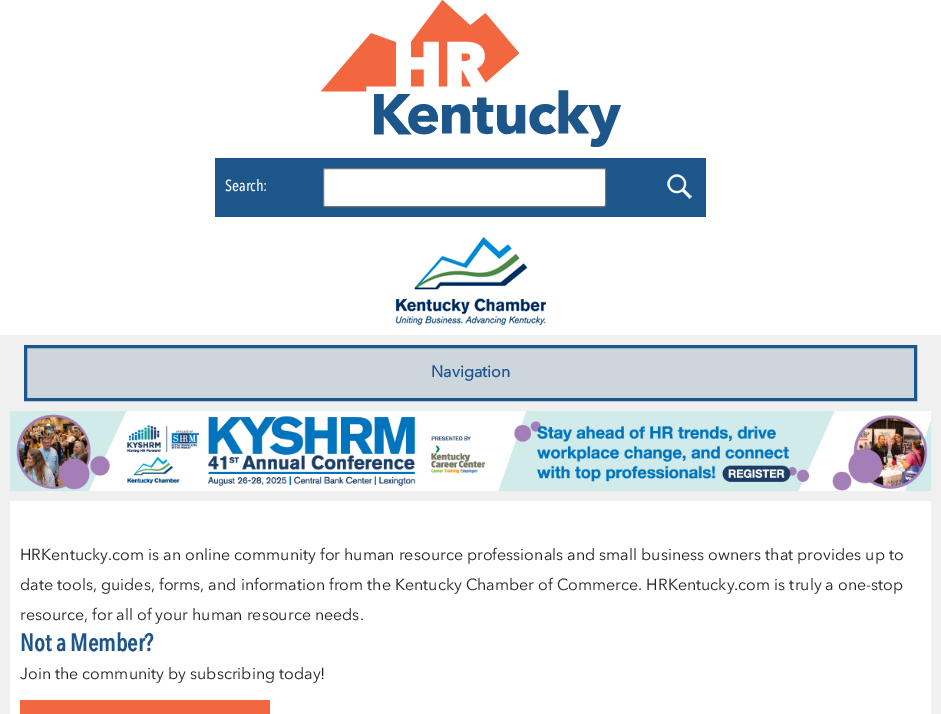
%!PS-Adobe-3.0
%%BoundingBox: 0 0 941 714
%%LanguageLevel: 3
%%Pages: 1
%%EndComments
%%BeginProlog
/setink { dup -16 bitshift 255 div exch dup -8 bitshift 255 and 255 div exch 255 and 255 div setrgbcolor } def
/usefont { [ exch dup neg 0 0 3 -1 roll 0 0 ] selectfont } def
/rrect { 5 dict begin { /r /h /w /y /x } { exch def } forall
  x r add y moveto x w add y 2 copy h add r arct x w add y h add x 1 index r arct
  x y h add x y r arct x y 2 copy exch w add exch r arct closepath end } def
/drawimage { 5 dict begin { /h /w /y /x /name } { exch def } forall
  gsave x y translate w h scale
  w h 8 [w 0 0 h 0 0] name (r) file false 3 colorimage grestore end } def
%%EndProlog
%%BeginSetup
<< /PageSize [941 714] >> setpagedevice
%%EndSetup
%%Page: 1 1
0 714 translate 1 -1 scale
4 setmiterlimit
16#F0F0F0 setink
0 0 941 714 rectfill
16#FFFFFF setink
0 0 941 335 rectfill
(img1.raw) 321 0 300 147 drawimage
16#1C568B setink
215 158 491 59 rectfill
/AvenirNext-Medium 16 usefont
16#FFFFFF setink
225 191 moveto (Search:) show
323.5 168.5 282 38 1.5 rrect gsave fill grestore
16#767676 setink
stroke
(img2.raw) 667 174 25 25 drawimage
(img3.raw) 396 237 150 88 drawimage
16#CDD5DD setink
25.5 346.5 moveto 915.5 346.5 lineto 915.5 399.5 lineto 25.5 399.5 lineto closepath gsave fill grestore
16#1C568B setink
3 setlinewidth
stroke
/AvenirNext-Bold 16 usefont
431 377 moveto (Navigation) show
(img4.raw) 10 411 921 80 drawimage
16#FFFFFF setink
10 501 921 213 rectfill
/AvenirNext-Regular 16 usefont
16#222222 setink
[
    [(HRKentucky.com is an online community for human resource professionals and small business owners that provides up to) 20 560]
    [(date tools, guides, forms, and information from the Kentucky Chamber of Commerce. HRKentucky.com is truly a one-stop) 20 590]
    [(resource, for all of your human resource needs.) 20 620]
] { aload pop moveto show } forall
/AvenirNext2-Bold 24 usefont
16#1C568B setink
20 651 moveto (Not a Member?) show
/AvenirNext-Regular 16 usefont
16#222222 setink
20 679 moveto (Join the community by subscribing today!) show
16#F2673F setink
20 700 250 14 rectfill
showpage
%%EOF
